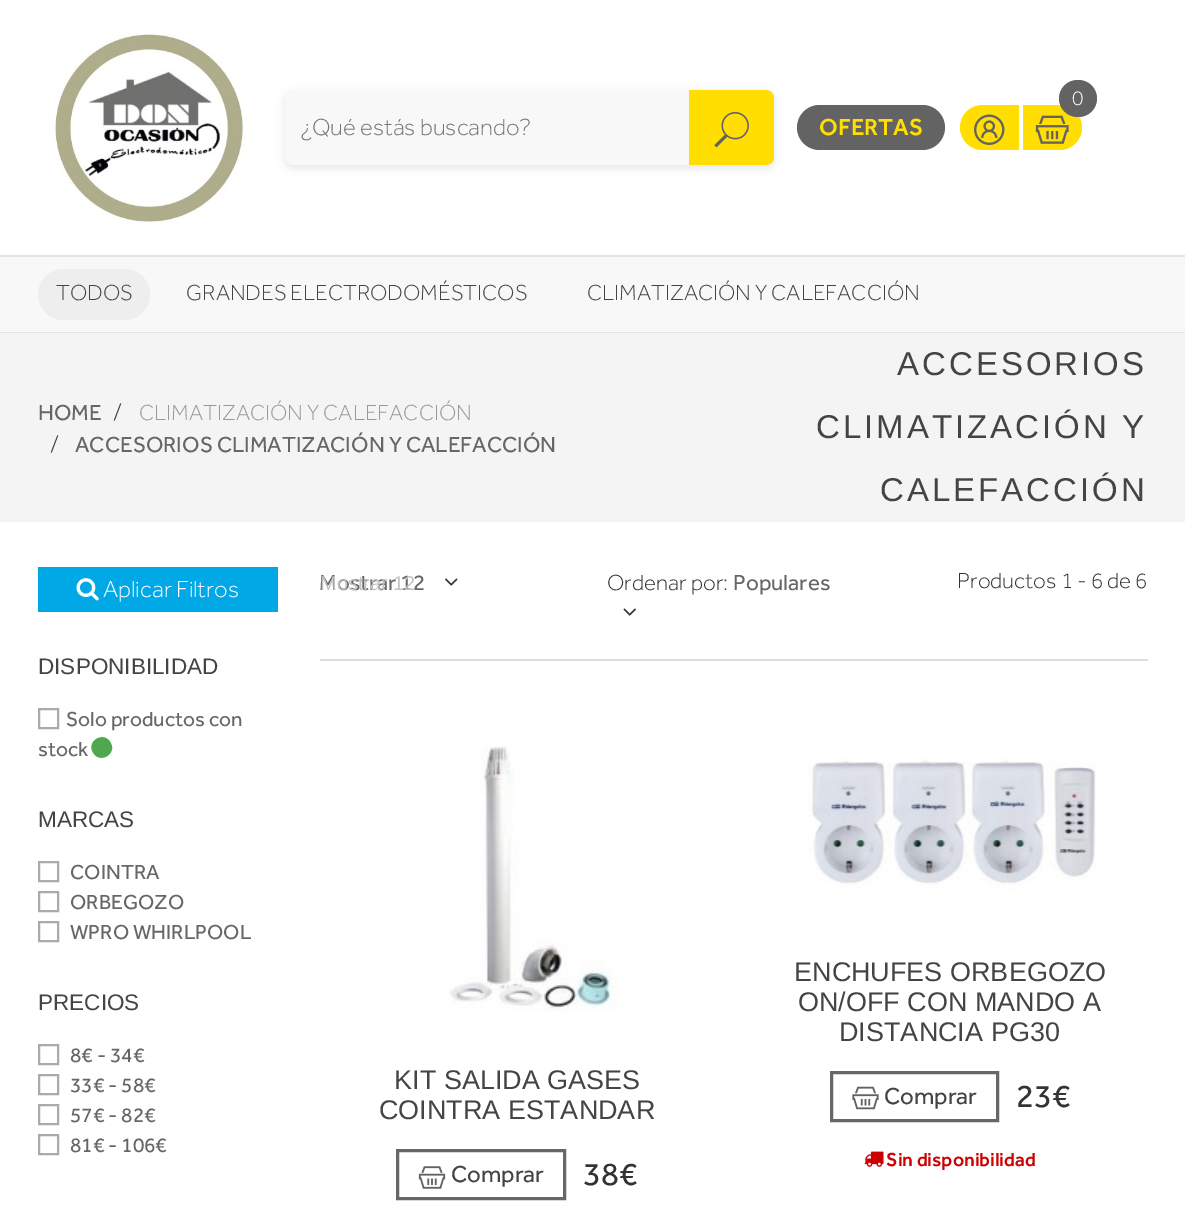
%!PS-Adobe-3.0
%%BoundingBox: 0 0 1185 1205
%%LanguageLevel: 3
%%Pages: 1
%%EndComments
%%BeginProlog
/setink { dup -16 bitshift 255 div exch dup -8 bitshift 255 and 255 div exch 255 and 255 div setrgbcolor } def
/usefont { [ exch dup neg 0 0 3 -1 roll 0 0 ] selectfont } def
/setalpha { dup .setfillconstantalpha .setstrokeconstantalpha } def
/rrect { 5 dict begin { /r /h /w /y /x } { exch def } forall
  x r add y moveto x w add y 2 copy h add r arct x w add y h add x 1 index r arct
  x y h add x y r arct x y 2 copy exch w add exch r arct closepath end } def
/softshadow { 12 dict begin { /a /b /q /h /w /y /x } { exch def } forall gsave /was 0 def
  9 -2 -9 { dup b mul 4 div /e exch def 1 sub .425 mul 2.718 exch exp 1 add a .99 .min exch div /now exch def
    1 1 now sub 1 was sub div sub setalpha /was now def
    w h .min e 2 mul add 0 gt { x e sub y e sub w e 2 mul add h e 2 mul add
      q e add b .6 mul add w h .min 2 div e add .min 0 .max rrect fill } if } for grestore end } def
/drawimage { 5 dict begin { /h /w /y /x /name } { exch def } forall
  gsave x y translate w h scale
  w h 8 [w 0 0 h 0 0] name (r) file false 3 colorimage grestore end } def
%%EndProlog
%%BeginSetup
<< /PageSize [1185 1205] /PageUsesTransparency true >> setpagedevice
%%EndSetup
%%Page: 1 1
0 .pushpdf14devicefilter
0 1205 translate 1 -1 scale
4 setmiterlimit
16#FFFFFF setink
0 0 1185 1205 rectfill
(img1.raw) 55 34 191 190 drawimage
16#000000 setink
285 93 489 75 8 4.5 0.1 softshadow
16#F8F8F8 setink
285 90 489 75 8 rrect fill
/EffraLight-Light 24 usefont
16#757575 setink
300 135 moveto (¿Qué estás buscando?) show
16#FFDE00 setink
689 90 moveto 766 90 lineto 770.5 90 774 93.5 774 98 curveto 774 157 lineto 774 161.5 770.5 165 766 165 curveto 689 165 lineto closepath fill
(img2.raw) 714 111 35 37 drawimage
1023 105 moveto 1059.5 105 lineto 1072 105 1082 115 1082 127.5 curveto 1082 140 1072 150 1059.5 150 curveto 1023 150 lineto closepath fill
(img3.raw) 1035 115 34 29 drawimage
16#636363 setink
1059 80 38 37 18.5 rrect fill
/EffraLight-Light 21 usefont
16#FFFFFF setink
1072 105 moveto (0) show
16#FFDE00 setink
982.5 105 moveto 1019 105 lineto 1019 150 lineto 982.5 150 lineto 970 150 960 140 960 127.5 curveto 960 115 970 105 982.5 105 curveto closepath fill
(img4.raw) 974 114 31 31 drawimage
16#636363 setink
797 105 148 45 22.5 rrect fill
/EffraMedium-Medium 24 usefont
16#FFDE00 setink
819 135 moveto (OFERTAS) show
[
    [0 257 1185 75 16#F8F8F8]
    [0 255 1185 2 16#E4E4E4]
    [0 332 1185 1 16#E4E4E4]
] { aload pop setink rectfill } forall
16#EEEEEE setink
38 269 112 51 25.5 rrect fill
/EffraLight-Light 22.5 usefont
16#444444 setink
[
    [(TODOS) 56 300]
    [(GRANDES ELECTRODOMÉSTICOS) 186 300]
    [(CLIMATIZACIÓN Y CALEFACCIÓN) 587 300]
] { aload pop moveto show } forall
16#F4F4F4 setink
0 333 1185 189 rectfill
/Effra-Regular 22.5 usefont
16#666666 setink
38 420 moveto (HOME) show
/EffraLight-Light 24 usefont
16#333333 setink
113 420 moveto (/) show
/EffraLight-Light 22.5 usefont
16#999999 setink
139 420 moveto (CLIMATIZACIÓN Y CALEFACCIÓN) show
/EffraLight-Light 24 usefont
16#333333 setink
50 452 moveto (/) show
/Effra-Regular 22.5 usefont
16#666666 setink
75 452 moveto (ACCESORIOS CLIMATIZACIÓN Y CALEFACCIÓN) show
/LiberationSans-Regular 33 usefont
16#444444 setink
897 375 moveto 3 0 (ACCESORIOS) ashow
816 438 moveto 3 0 (CLIMATIZACIÓN Y) ashow
880 501 moveto 3 0 (CALEFACCIÓN) ashow
16#00A8E6 setink
38 567 240 45 rectfill
(img5.raw) 76 578 23 23 drawimage
/EffraLight-Light 24 usefont
16#FFFFFF setink
103 597 moveto (Aplicar Filtros) show
/LiberationSans-Regular 22.5 usefont
16#444444 setink
38 674 moveto (DISPONIBILIDAD) show
16#AAAAAA setink
2 setlinewidth
39 709 19 19 rectstroke
/Effra-Regular 21 usefont
16#666666 setink
66 726 moveto (Solo productos con) show
38 756 moveto (stock) show
16#4FA74F setink
110.5 742.5 moveto 117.5 754 99.5 764.5 93 752.5 curveto 86 741 104 730.5 110.5 742.5 curveto closepath fill
/LiberationSans-Regular 22.5 usefont
16#444444 setink
38 827 moveto (MARCAS) show
16#AAAAAA setink
39 862 19 19 rectstroke
/Effra-Regular 21 usefont
16#666666 setink
70 879 moveto (COINTRA) show
16#AAAAAA setink
39 892 19 19 rectstroke
16#666666 setink
70 909 moveto (ORBEGOZO) show
16#AAAAAA setink
39 922 19 19 rectstroke
16#666666 setink
70 939 moveto (WPRO WHIRLPOOL) show
/LiberationSans-Regular 22.5 usefont
16#444444 setink
38 1010 moveto (PRECIOS) show
16#AAAAAA setink
39 1045 19 19 rectstroke
/Effra-Regular 21 usefont
16#666666 setink
70 1062 moveto (8€ - 34€) show
16#AAAAAA setink
39 1075 19 19 rectstroke
16#666666 setink
70 1092 moveto (33€ - 58€) show
16#AAAAAA setink
39 1105 19 19 rectstroke
16#666666 setink
70 1122 moveto (57€ - 82€) show
16#AAAAAA setink
39 1135 19 19 rectstroke
16#666666 setink
70 1152 moveto (81€ - 106€) show
/Effra-Regular 22.5 usefont
319 590 moveto (Mostrar 12) show
/LiberationSans-Regular 20 usefont
16#C2C2C2 setink
320 590 moveto (Mostrar 12) show
(img6.raw) 445 578 13 8 drawimage
/EffraLight-Light 22.5 usefont
16#333333 setink
607 590 moveto (Ordenar por:) show
/Effra-Regular 22.5 usefont
16#666666 setink
733 590 moveto (Populares) show
(img7.raw) 623 608 13 8 drawimage
/EffraLight-Light 22.5 usefont
16#333333 setink
957 588 moveto (Productos 1 - 6 de 6) show
16#DDDDDD setink
320 659 828 2 rectfill
(img8.raw) 449 746 172 266 drawimage
/LiberationSans-Regular 27 usefont
16#444444 setink
394 1089 moveto (KIT SALIDA GASES) show
379 1119 moveto (COINTRA ESTANDAR) show
16#676767 setink
3 setlinewidth
397.5 1150.5 167 48 rectstroke
(img9.raw) 418 1166 28 23 drawimage
/Effra-Regular 24 usefont
16#444444 setink
451 1182 moveto (Comprar) show
/Effra-Regular 33 usefont
16#333333 setink
583 1185 moveto (38€) show
(img10.raw) 807 758 289 132 drawimage
/LiberationSans-Regular 27 usefont
16#444444 setink
[
    [(ENCHUFES ORBEGOZO) 794 981]
    [(ON/OFF CON MANDO A) 798 1011]
    [(DISTANCIA PG30) 839 1041]
] { aload pop moveto show } forall
16#676767 setink
831.5 1072.5 166 48 rectstroke
(img11.raw) 852 1086 27 24 drawimage
/Effra-Regular 24 usefont
16#444444 setink
884 1104 moveto (Comprar) show
/Effra-Regular 33 usefont
16#333333 setink
1016 1107 moveto (23€) show
(img12.raw) 864 1151 20 16 drawimage
/EffraMedium-Medium 19.5 usefont
16#CC0000 setink
886 1166 moveto (Sin disponibilidad) show
.poppdf14devicefilter showpage
%%EOF
